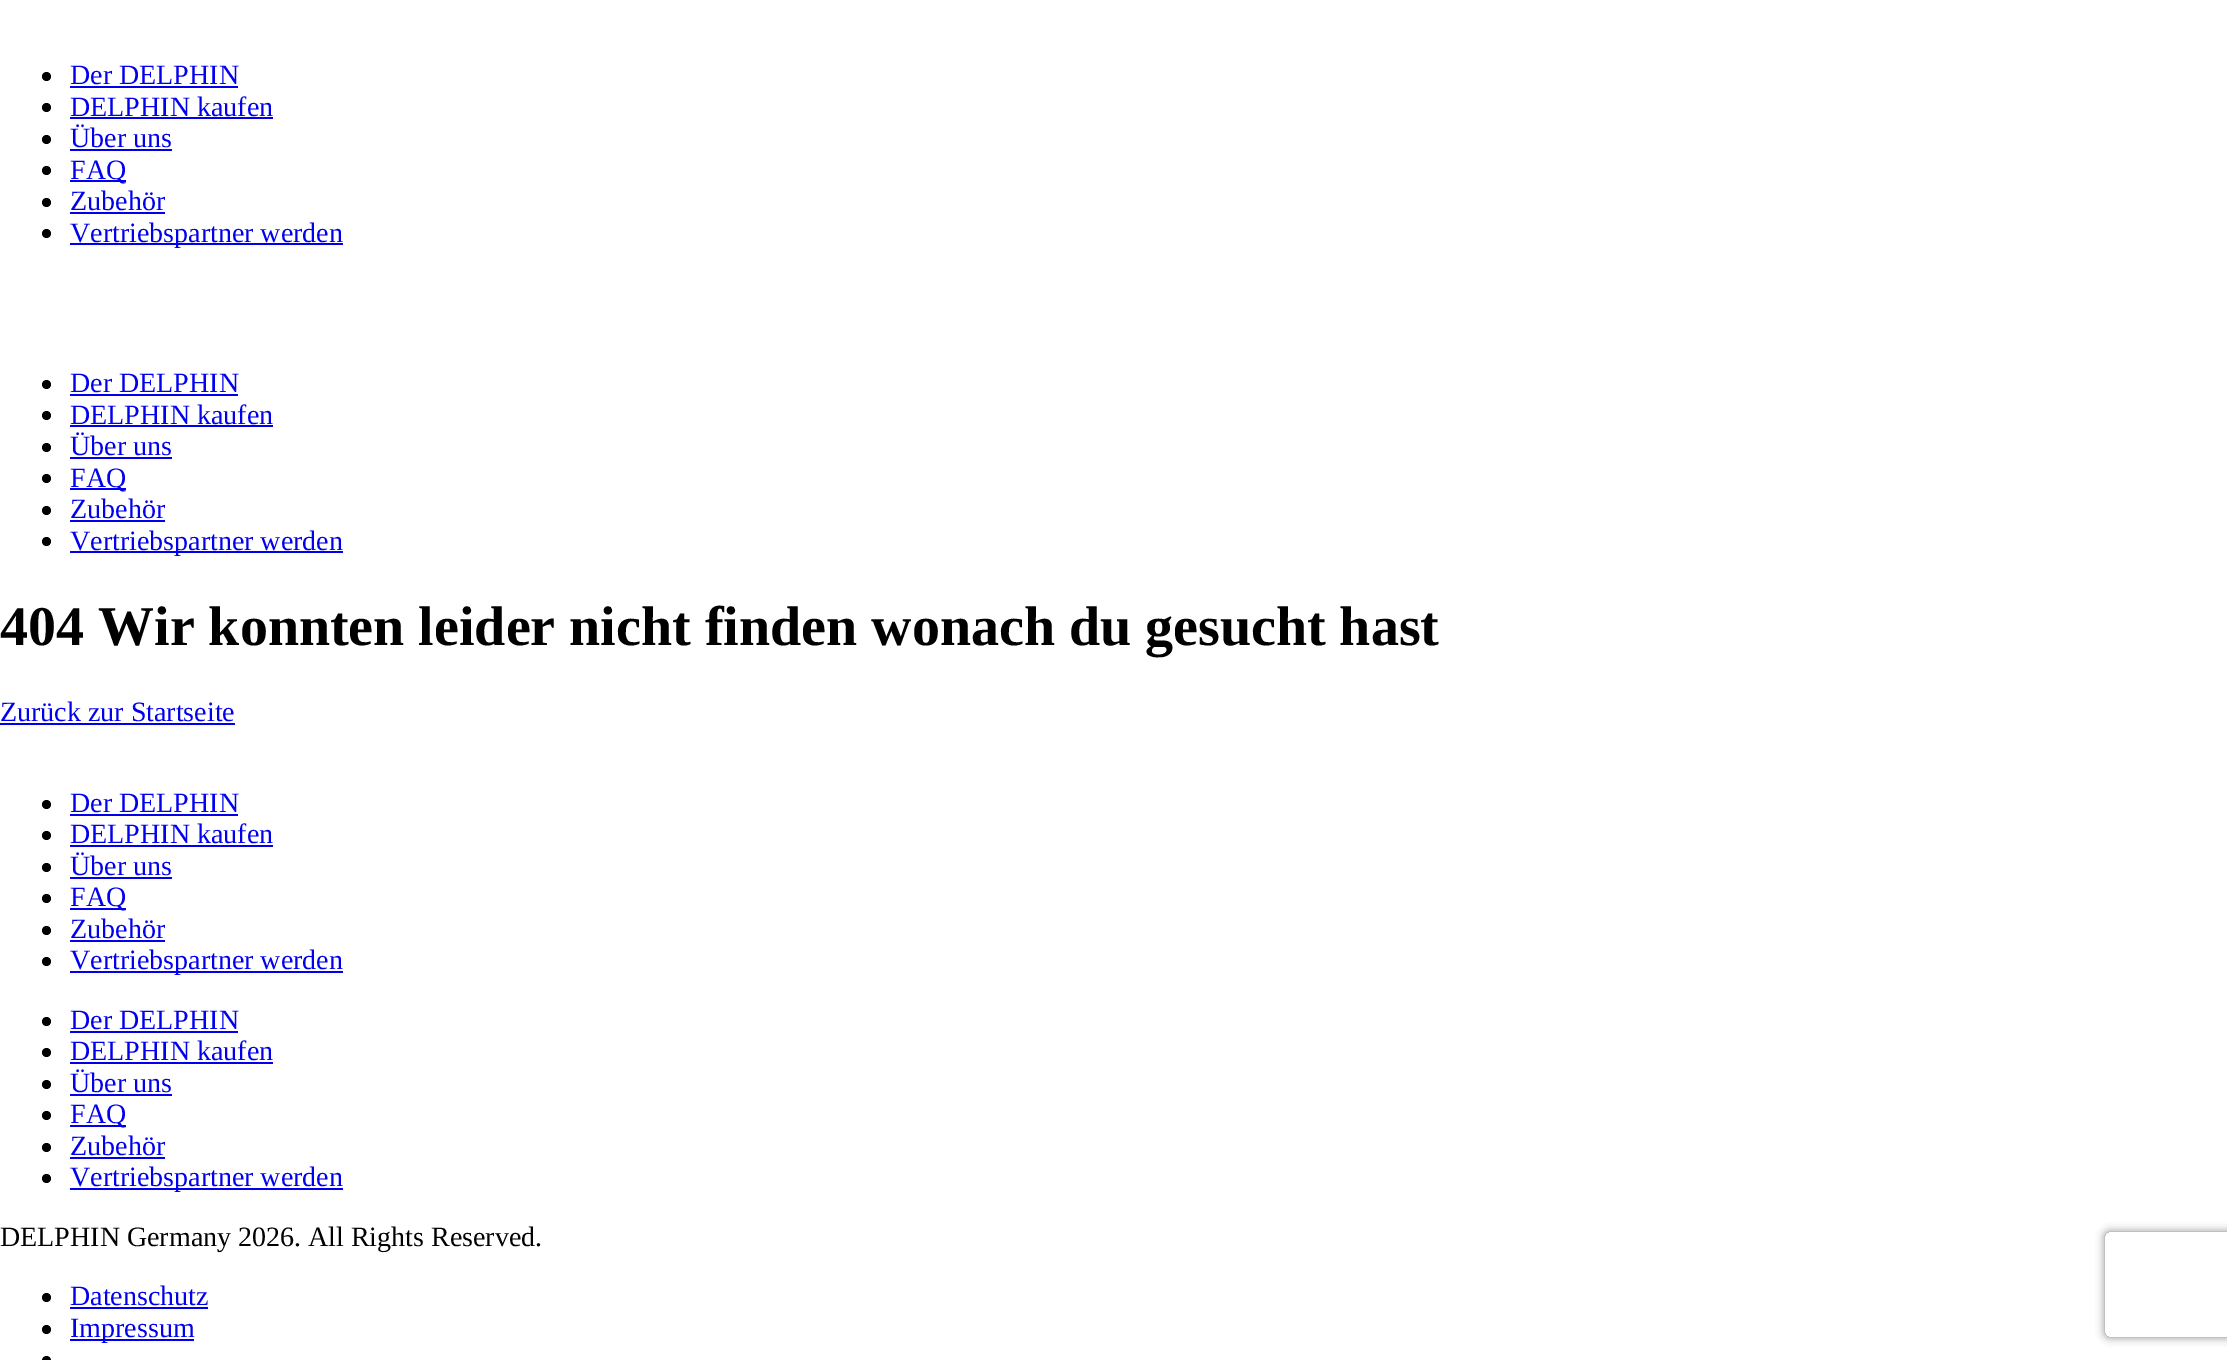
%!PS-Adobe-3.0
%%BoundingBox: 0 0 2227 1360
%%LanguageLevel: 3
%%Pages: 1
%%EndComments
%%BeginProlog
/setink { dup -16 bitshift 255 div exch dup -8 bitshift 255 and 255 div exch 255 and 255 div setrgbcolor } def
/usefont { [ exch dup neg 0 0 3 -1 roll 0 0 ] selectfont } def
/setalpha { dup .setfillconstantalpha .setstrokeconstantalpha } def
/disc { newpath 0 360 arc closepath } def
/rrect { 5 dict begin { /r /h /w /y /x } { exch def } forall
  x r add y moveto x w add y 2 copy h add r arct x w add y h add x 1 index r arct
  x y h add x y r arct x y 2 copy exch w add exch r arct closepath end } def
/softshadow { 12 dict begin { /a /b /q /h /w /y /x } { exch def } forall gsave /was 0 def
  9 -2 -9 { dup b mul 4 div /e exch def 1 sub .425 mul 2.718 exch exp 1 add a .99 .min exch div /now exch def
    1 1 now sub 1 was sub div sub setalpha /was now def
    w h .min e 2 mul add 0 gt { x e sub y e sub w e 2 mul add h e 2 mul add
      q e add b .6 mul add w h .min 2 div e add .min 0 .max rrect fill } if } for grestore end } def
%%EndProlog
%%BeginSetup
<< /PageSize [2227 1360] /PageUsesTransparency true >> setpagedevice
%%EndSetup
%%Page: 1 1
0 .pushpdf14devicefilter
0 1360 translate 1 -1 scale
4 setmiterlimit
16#FFFFFF setink
0 0 2227 1360 rectfill
16#000000 setink
46.5 76.5 4.5 disc fill
/LiberationSerif-Regular 28 usefont
16#0000EE setink
70 84 moveto (Der DELPHIN) show
70 86 168 2 rectfill
16#000000 setink
46.5 107.5 4.5 disc fill
16#0000EE setink
70 116 moveto (DELPHIN kaufen) show
70 117 203 2 rectfill
16#000000 setink
46.5 139.5 4.5 disc fill
16#0000EE setink
70 147 moveto (Über uns) show
70 149 102 2 rectfill
16#000000 setink
46.5 170.5 4.5 disc fill
16#0000EE setink
70 180 56 2 rectfill
70 179 moveto (FAQ) show
16#000000 setink
46.5 202.5 4.5 disc fill
16#0000EE setink
70 210 moveto (Zubehör) show
70 212 95 2 rectfill
16#000000 setink
46.5 233.5 4.5 disc fill
16#0000EE setink
70 243 273 2 rectfill
70 242 moveto (Vertriebspartner werden) show
16#000000 setink
46.5 384.5 4.5 disc fill
16#0000EE setink
70 392 moveto (Der DELPHIN) show
70 394 168 2 rectfill
16#000000 setink
46.5 415.5 4.5 disc fill
16#0000EE setink
70 424 moveto (DELPHIN kaufen) show
70 425 203 2 rectfill
16#000000 setink
46.5 447.5 4.5 disc fill
16#0000EE setink
70 455 moveto (Über uns) show
70 457 102 2 rectfill
16#000000 setink
46.5 478.5 4.5 disc fill
16#0000EE setink
70 488 56 2 rectfill
70 487 moveto (FAQ) show
16#000000 setink
46.5 510.5 4.5 disc fill
16#0000EE setink
70 518 moveto (Zubehör) show
70 520 95 2 rectfill
16#000000 setink
46.5 541.5 4.5 disc fill
16#0000EE setink
70 551 273 2 rectfill
70 550 moveto (Vertriebspartner werden) show
/LiberationSerif-Bold 56 usefont
16#000000 setink
0 645 moveto (404 Wir konnten leider nicht finden wonach du gesucht hast) show
/LiberationSerif-Regular 28 usefont
16#0000EE setink
0 721 moveto (Zurück zur Startseite) show
0 723 235 2 rectfill
16#000000 setink
46.5 804.5 4.5 disc fill
16#0000EE setink
70 812 moveto (Der DELPHIN) show
70 814 168 2 rectfill
16#000000 setink
46.5 835.5 4.5 disc fill
16#0000EE setink
70 843 moveto (DELPHIN kaufen) show
70 845 203 2 rectfill
16#000000 setink
46.5 867.5 4.5 disc fill
16#0000EE setink
70 875 moveto (Über uns) show
70 877 102 2 rectfill
16#000000 setink
46.5 898.5 4.5 disc fill
16#0000EE setink
70 908 56 2 rectfill
70 906 moveto (FAQ) show
16#000000 setink
46.5 930.5 4.5 disc fill
16#0000EE setink
70 938 moveto (Zubehör) show
70 940 95 2 rectfill
16#000000 setink
46.5 961.5 4.5 disc fill
16#0000EE setink
70 971 273 2 rectfill
70 969 moveto (Vertriebspartner werden) show
16#000000 setink
46.5 1021.5 4.5 disc fill
16#0000EE setink
70 1029 moveto (Der DELPHIN) show
70 1031 168 2 rectfill
16#000000 setink
46.5 1052.5 4.5 disc fill
16#0000EE setink
70 1060 moveto (DELPHIN kaufen) show
70 1062 203 2 rectfill
16#000000 setink
46.5 1084.5 4.5 disc fill
16#0000EE setink
70 1092 moveto (Über uns) show
70 1094 102 2 rectfill
16#000000 setink
46.5 1115.5 4.5 disc fill
16#0000EE setink
70 1125 56 2 rectfill
70 1123 moveto (FAQ) show
16#000000 setink
46.5 1147.5 4.5 disc fill
16#0000EE setink
70 1155 moveto (Zubehör) show
70 1157 95 2 rectfill
16#000000 setink
46.5 1178.5 4.5 disc fill
16#0000EE setink
70 1188 273 2 rectfill
70 1186 moveto (Vertriebspartner werden) show
16#000000 setink
0 1246 moveto (DELPHIN Germany 2026. All Rights Reserved.) show
46.5 1297.5 4.5 disc fill
16#0000EE setink
70 1305 moveto (Datenschutz) show
70 1307 138 2 rectfill
16#000000 setink
46.5 1329.5 4.5 disc fill
16#0000EE setink
70 1339 124 2 rectfill
70 1337 moveto (Impressum) show
16#000000 setink
46.5 1360.5 4.5 disc fill
gsave
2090 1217 moveto 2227 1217 lineto 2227 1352 lineto 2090 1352 lineto closepath 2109 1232 moveto 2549 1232 lineto 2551 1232 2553 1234 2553 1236 curveto 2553 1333 lineto 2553 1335 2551 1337 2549 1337 curveto 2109 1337 lineto 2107 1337 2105 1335 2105 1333 curveto 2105 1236 lineto 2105 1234 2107 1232 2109 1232 curveto closepath eoclip newpath
16#808080 setink
2105 1232 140 105 4 4.5 1 softshadow
grestore
.poppdf14devicefilter showpage
%%EOF
